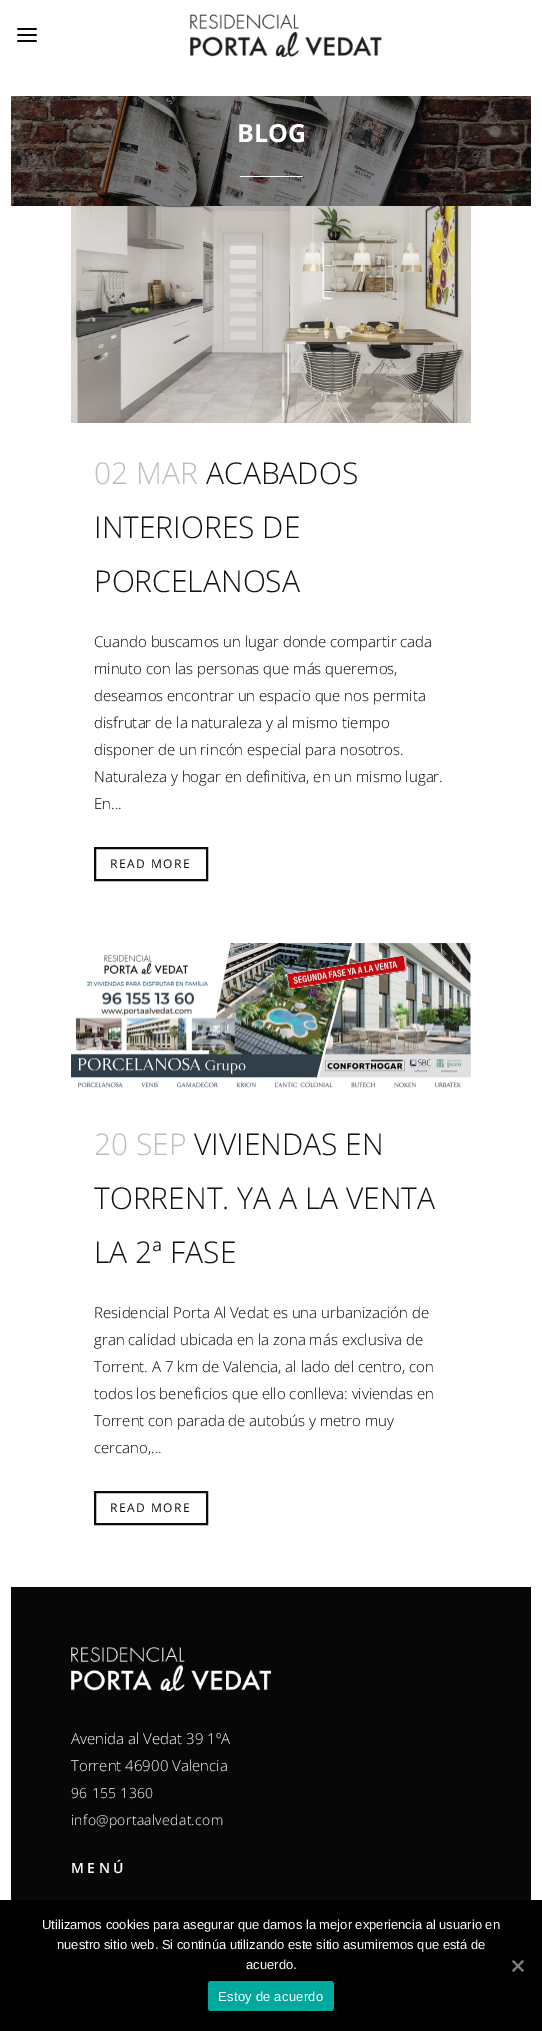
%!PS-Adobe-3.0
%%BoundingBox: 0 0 542 2031
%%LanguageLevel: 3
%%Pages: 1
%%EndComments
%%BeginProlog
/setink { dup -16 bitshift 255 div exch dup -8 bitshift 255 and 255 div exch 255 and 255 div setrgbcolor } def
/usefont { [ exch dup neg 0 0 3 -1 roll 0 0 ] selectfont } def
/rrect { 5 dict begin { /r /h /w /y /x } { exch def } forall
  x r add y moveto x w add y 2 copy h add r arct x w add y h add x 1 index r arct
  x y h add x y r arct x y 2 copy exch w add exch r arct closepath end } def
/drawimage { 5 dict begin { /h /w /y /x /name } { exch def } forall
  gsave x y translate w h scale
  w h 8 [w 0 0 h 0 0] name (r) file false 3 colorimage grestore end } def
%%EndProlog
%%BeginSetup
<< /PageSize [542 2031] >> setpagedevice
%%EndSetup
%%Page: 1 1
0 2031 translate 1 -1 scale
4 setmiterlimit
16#FFFFFF setink
0 0 542 2031 rectfill
(img1.raw) 17 28 20 14 drawimage
(img2.raw) 190 14 192 43 drawimage
(img3.raw) 11 96 520 110 drawimage
/OpenSans-Bold 25 usefont
237 142 moveto (BLOG) show
240 176 63 1 rectfill
(img4.raw) 71 206 400 217 drawimage
/OpenSans-Light 30 usefont
16#BEBEBE setink
94 484 moveto (02 MAR) show
16#131212 setink
[
    [(ACABADOS) 206 484]
    [(INTERIORES DE) 94 538]
    [(PORCELANOSA) 94 592]
] { aload pop moveto show } forall
/OpenSans-Light 15 usefont
16#000000 setink
[
    [(Cuando buscamos un lugar donde compartir cada) 94 647]
    [(minuto con las personas que más queremos,) 94 674]
    [(deseamos encontrar un espacio que nos permita) 94 701]
    [(disfrutar de la naturaleza y al mismo tiempo) 94 728]
    [(disponer de un rincón especial para nosotros.) 94 755]
    [(Naturaleza y hogar en definitiva, en un mismo lugar.) 94 782]
    [(En...) 94 809]
] { aload pop moveto show } forall
16#0B0B0B setink
2 setlinewidth
95 848 112 32 rectstroke
/OpenSans-Regular 12 usefont
110 868 moveto 1.5 0 (READ MORE) ashow
(img5.raw) 71 943 400 146 drawimage
/OpenSans-Light 30 usefont
16#BEBEBE setink
94 1155 moveto (20 SEP) show
16#131212 setink
[
    [(VIVIENDAS EN) 194 1155]
    [(TORRENT. YA A LA VENTA) 94 1209]
    [(LA 2ª FASE) 94 1263]
] { aload pop moveto show } forall
/OpenSans-Light 15 usefont
16#000000 setink
[
    [(Residencial Porta Al Vedat es una urbanización de) 94 1318]
    [(gran calidad ubicada en la zona más exclusiva de) 94 1345]
    [(Torrent. A 7 km de Valencia, al lado del centro, con) 94 1372]
    [(todos los beneficios que ello conlleva: viviendas en) 94 1399]
    [(Torrent con parada de autobús y metro muy) 94 1426]
    [(cercano,...) 94 1453]
] { aload pop moveto show } forall
16#0B0B0B setink
95 1492 112 32 rectstroke
/OpenSans-Regular 12 usefont
110 1512 moveto 1.5 0 (READ MORE) ashow
16#070707 setink
11 1587 520 313 rectfill
(img6.raw) 71 1647 200 44 drawimage
/OpenSans-Light 15 usefont
16#FFFFFF setink
71 1744 moveto (Avenida al Vedat 39 1ºA) show
71 1771 moveto (Torrent 46900 Valencia) show
/OpenSans-Light 14 usefont
71 1798 moveto 0.3 0 (96 155 1360) ashow
71 1825 moveto 0.3 0 (info@portaalvedat.com) ashow
/OpenSans-SemiBold 14 usefont
71 1873 moveto 3.5 0 (MENÚ) ashow
16#000000 setink
0 1900 542 131 rectfill
/LiberationSans-Regular 13 usefont
16#FFFFFF setink
[
    [(Utilizamos cookies para asegurar que damos la mejor experiencia al usuario en) 42 1929]
    [(nuestro sitio web. Si continúa utilizando este sitio asumiremos que está de) 57 1949]
    [(acuerdo.) 246 1969]
] { aload pop moveto show } forall
16#808080 setink
522.5 1960 moveto 524 1961.5 lineto 513.5 1972 lineto 512 1970.5 lineto closepath fill
512 1961.5 moveto 513.5 1960 lineto 524 1970.5 lineto 522.5 1972 lineto closepath fill
16#00A99D setink
208 1981 126 30 3 rrect fill
16#FFFFFF setink
218 2001 moveto 0.25 0 (Estoy de acuerdo) ashow
showpage
%%EOF
